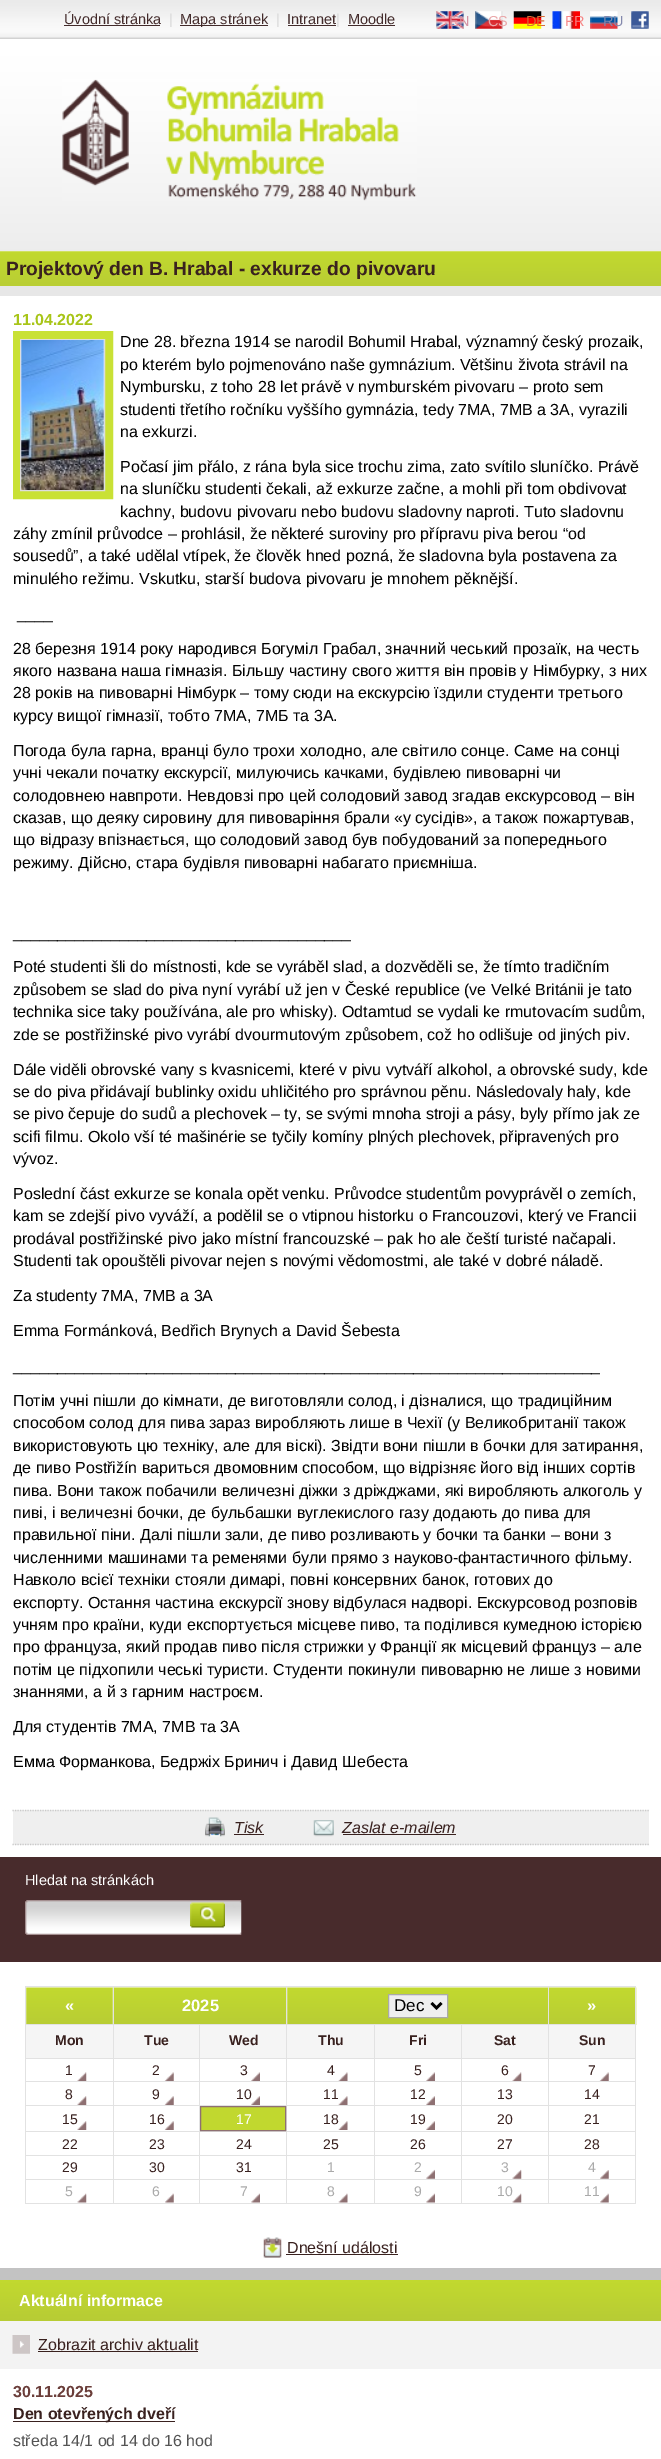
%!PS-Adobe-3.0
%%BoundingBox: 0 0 661 2459
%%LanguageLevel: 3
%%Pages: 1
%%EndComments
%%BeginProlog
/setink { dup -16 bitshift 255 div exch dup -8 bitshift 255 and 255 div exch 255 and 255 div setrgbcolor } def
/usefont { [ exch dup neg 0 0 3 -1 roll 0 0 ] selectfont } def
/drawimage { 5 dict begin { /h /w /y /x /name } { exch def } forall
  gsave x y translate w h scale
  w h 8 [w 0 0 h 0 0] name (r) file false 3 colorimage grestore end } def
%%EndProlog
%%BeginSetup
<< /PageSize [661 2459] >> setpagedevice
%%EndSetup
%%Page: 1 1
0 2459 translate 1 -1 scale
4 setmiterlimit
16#C3C3C3 setink
0 0 661 2459 rectfill
(img1.raw) 0 38 661 213 drawimage
(img2.raw) 0 0 661 38 drawimage
/LiberationSans-Regular 14.5 usefont
16#432B2B setink
64 24 moveto (Úvodní stránka) show
64 25 96 1 rectfill
16#DADADA setink
169 24 moveto (|) show
16#432B2B setink
180 25 88 1 rectfill
180 24 moveto (Mapa stránek) show
16#DADADA setink
276 24 moveto (|) show
16#432B2B setink
287 24 moveto (Intranet) show
288 25 48 1 rectfill
16#DADADA setink
336 24 moveto (|) show
16#432B2B setink
348 24 moveto (Moodle) show
348 25 47 1 rectfill
(img3.raw) 436 11 28 18 drawimage
16#D492A2 setink
449 26 moveto (EN) show
(img4.raw) 475 11 28 18 drawimage
16#EAA9AB setink
488 26 moveto (CS) show
(img5.raw) 513 11 29 18 drawimage
16#D86C36 setink
526 26 moveto (DE) show
(img6.raw) 552 11 28 18 drawimage
16#F68686 setink
565 26 moveto (FR) show
(img7.raw) 590 11 28 18 drawimage
16#8489AD setink
603 26 moveto (RU) show
(img8.raw) 631 11 18 18 drawimage
(img9.raw) 62 79 355 122 drawimage
16#FFFFFF setink
0 251 661 1606 rectfill
(img10.raw) 0 251 661 35 drawimage
16#E7E7E7 setink
0 286 661 10 rectfill
/LiberationSans-Bold 19.2 usefont
16#39211F setink
6 275 moveto (Projektový den B. Hrabal - exkurze do pivovaru) show
/LiberationSans-Bold 16 usefont
16#A8C518 setink
13 325 moveto (11.04.2022) show
16#C9E135 setink
8 setlinewidth
17 335 92 160 rectstroke
16#DDDDDD setink
1 setlinewidth
20.5 339.5 84 151 rectstroke
(img11.raw) 21 340 83 150 drawimage
/LiberationSans-Regular 16 usefont
16#000000 setink
[
    [(Dne 28. března 1914 se narodil Bohumil Hrabal, významný český prozaik,) 120 347]
    [(po kterém bylo pojmenováno naše gymnázium. Většinu života strávil na) 120 370]
    [(Nymbursku, z toho 28 let právě v nymburském pivovaru – proto sem) 120 392]
    [(studenti třetího ročníku vyššího gymnázia, tedy 7MA, 7MB a 3A, vyrazili) 120 415]
    [(na exkurzi.) 120 437]
    [(Počasí jim přálo, z rána byla sice trochu zima, zato svítilo sluníčko. Právě) 120 472]
    [(na sluníčku studenti čekali, až exkurze začne, a mohli při tom obdivovat) 120 494]
    [(kachny, budovu pivovaru nebo budovu sladovny naproti. Tuto sladovnu) 120 517]
    [(záhy zmínil průvodce – prohlásil, že některé suroviny pro přípravu piva berou “od) 13 539]
    [(sousedů”, a také udělal vtípek, že člověk hned pozná, že sladovna byla postavena za) 13 561]
    [(minulého režimu. Vskutku, starší budova pivovaru je mnohem pěknější.) 13 584]
    [(____) 17 619]
    [(28 березня 1914 року народився Богуміл Грабал, значний чеський прозаїк, на честь) 13 654]
    [(якого названа наша гімназія. Більшу частину свого життя він провів у Німбурку, з них) 13 676]
    [(28 років на пивоварні Німбурк – тому сюди на екскурсію їздили студенти третього) 13 698]
    [(курсу вищої гімназії, тобто 7МА, 7МБ та 3А.) 13 721]
    [(Погода була гарна, вранці було трохи холодно, але світило сонце. Саме на сонці) 13 756]
    [(учні чекали початку екскурсії, милуючись качками, будівлею пивоварні чи) 13 778]
    [(солодовнею навпроти. Невдовзі про цей солодовий завод згадав екскурсовод – він) 13 801]
    [(сказав, що деяку сировину для пивоваріння брали «у сусідів», а також пожартував,) 13 823]
    [(що відразу впізнається, що солодовий завод був побудований за попереднього) 13 845]
    [(режиму. Дійсно, стара будівля пивоварні набагато приємніша.) 13 868]
    [(______________________________________) 13 938]
    [(Poté studenti šli do místnosti, kde se vyráběl slad, a dozvěděli se, že tímto tradičním) 13 972]
    [(způsobem se slad do piva nyní vyrábí už jen v České republice \(ve Velké Británii je tato) 13 995]
    [(technika sice taky používána, ale pro whisky\). Odtamtud se vydali ke rmutovacím sudům,) 13 1017]
    [(zde se postřižinské pivo vyrábí dvourmutovým způsobem, což ho odlišuje od jiných piv.) 13 1040]
    [(Dále viděli obrovské vany s kvasnicemi, které v pivu vytváří alkohol, a obrovské sudy, kde) 13 1075]
    [(se do piva přidávají bublinky oxidu uhličitého pro správnou pěnu. Následovaly haly, kde) 13 1097]
    [(se pivo čepuje do sudů a plechovek – ty, se svými mnoha stroji a pásy, byly přímo jak ze) 13 1119]
    [(scifi filmu. Okolo vší té mašinérie se tyčily komíny plných plechovek, připravených pro) 13 1142]
    [(vývoz.) 13 1164]
    [(Poslední část exkurze se konala opět venku. Průvodce studentům povyprávěl o zemích,) 13 1199]
    [(kam se zdejší pivo vyváží, a podělil se o vtipnou historku o Francouzovi, který ve Francii) 13 1221]
    [(prodával postřižinské pivo jako místní francouzské – pak ho ale čeští turisté načapali.) 13 1244]
    [(Studenti tak opouštěli pivovar nejen s novými vědomostmi, ale také v dobré náladě.) 13 1266]
    [(Za studenty 7MA, 7MB a 3A) 13 1301]
    [(Emma Formánková, Bedřich Brynych a David Šebesta) 13 1336]
    [(__________________________________________________________________) 13 1371]
    [(Потім учні пішли до кімнати, де виготовляли солод, і дізналися, що традиційним) 13 1406]
    [(способом солод для пива зараз виробляють лише в Чехії \(у Великобританії також) 13 1428]
    [(використовують цю техніку, але для віскі\). Звідти вони пішли в бочки для затирання,) 13 1451]
    [(де пиво Postřižín вариться двомовним способом, що відрізняє його від інших сортів) 13 1473]
    [(пива. Вони також побачили величезні діжки з дріжджами, які виробляють алкоголь у) 13 1496]
    [(пиві, і величезні бочки, де бульбашки вуглекислого газу додають до пива для) 13 1518]
    [(правильної піни. Далі пішли зали, де пиво розливають у бочки та банки – вони з) 13 1540]
    [(численними машинами та ременями були прямо з науково-фантастичного фільму.) 13 1563]
    [(Навколо всієї техніки стояли димарі, повні консервних банок, готових до) 13 1585]
    [(експорту. Остання частина екскурсії знову відбулася надворі. Екскурсовод розповів) 13 1608]
    [(учням про країни, куди експортується місцеве пиво, та поділився кумедною історією) 13 1630]
    [(про француза, який продав пиво після стрижки у Франції як місцевий француз – але) 13 1652]
    [(потім це підхопили чеські туристи. Студенти покинули пивоварню не лише з новими) 13 1675]
    [(знаннями, а й з гарним настроєм.) 13 1697]
    [(Для студентів 7MA, 7MB та 3A) 13 1732]
    [(Емма Форманкова, Бедржіх Бринич і Давид Шебеста) 13 1767]
] { aload pop moveto show } forall
16#EFEFEF setink
13 1810 636 35 rectfill
16#C9C9C9 setink
1.2 setlinewidth
[1.25 1.25] 0 setdash
12.5 1810.5 moveto 649 1810.5 lineto stroke
12.5 1844.5 moveto 649 1844.5 lineto stroke
(img12.raw) 205 1817 20 20 drawimage
/LiberationSans-Italic 16 usefont
16#39211F setink
234 1833 moveto (Tisk) show
234 1834 30 1 rectfill
(img13.raw) 313 1820 21 17 drawimage
342 1833 moveto (Zaslat e-mailem) show
343 1834 113 1 rectfill
16#482B2C setink
0 1857 661 105 rectfill
/LiberationSans-Regular 14.5 usefont
16#FFFFFF setink
25 1885 moveto (Hledat na stránkách) show
(img14.raw) 25 1900 217 35 drawimage
(img15.raw) 190 1902 35 26 drawimage
0 1962 661 306 rectfill
(img16.raw) 26 1987 87 37 drawimage
16#E2E2E2 setink
548 1986 88 1 rectfill
(img19.raw) 549 1987 88 38 drawimage
[
    [548 2024 88 1 16#E2E2E2]
    [548 2058 88 1 16#E2E2E2]
    [548 2081 88 1 16#E2E2E2]
    [548 2105 88 1 16#E2E2E2]
    [548 2131 88 1 16#E2E2E2]
    [548 2155 88 1 16#E2E2E2]
    [548 2179 88 1 16#E2E2E2]
    [635 2179 1 25 16#E2E2E2]
    [548 2203 88 1 16#E2E2E2]
    [548 2179 1 25 16#E2E2E2]
    [461 2179 88 1 16#E2E2E2]
    [548 2155 1 25 16#E2E2E2]
    [461 2155 88 1 16#E2E2E2]
    [548 2131 1 25 16#E2E2E2]
    [461 2131 88 1 16#E2E2E2]
    [548 2105 1 28 16#E2E2E2]
    [461 2105 88 1 16#E2E2E2]
    [548 2081 1 25 16#E2E2E2]
    [461 2081 88 1 16#E2E2E2]
    [548 2058 1 25 16#E2E2E2]
    [461 2058 88 1 16#E2E2E2]
    [548 2024 1 35 16#E2E2E2]
    [461 2024 88 1 16#E2E2E2]
    [548 1986 1 39 16#E2E2E2]
    [286 1986 263 1 16#E2E2E2]
] { aload pop setink rectfill } forall
(img17.raw) 112 1987 176 37 drawimage
[
    [461 2203 88 1 16#E2E2E2]
    [461 2179 1 25 16#E2E2E2]
    [374 2179 89 1 16#E2E2E2]
    [461 2155 1 25 16#E2E2E2]
    [374 2155 89 1 16#E2E2E2]
    [461 2131 1 25 16#E2E2E2]
    [374 2131 89 1 16#E2E2E2]
    [461 2105 1 28 16#E2E2E2]
    [374 2105 89 1 16#E2E2E2]
    [461 2081 1 25 16#E2E2E2]
    [374 2081 89 1 16#E2E2E2]
    [461 2058 1 25 16#E2E2E2]
    [374 2058 89 1 16#E2E2E2]
    [461 2024 1 35 16#E2E2E2]
    [374 2024 89 1 16#E2E2E2]
    [374 2203 89 1 16#E2E2E2]
    [374 2179 1 25 16#E2E2E2]
    [286 2179 89 1 16#E2E2E2]
    [374 2155 1 25 16#E2E2E2]
    [286 2155 89 1 16#E2E2E2]
    [374 2131 1 25 16#E2E2E2]
    [286 2131 89 1 16#E2E2E2]
    [374 2105 1 28 16#E2E2E2]
    [286 2105 89 1 16#E2E2E2]
    [374 2081 1 25 16#E2E2E2]
    [286 2081 89 1 16#E2E2E2]
    [374 2058 1 25 16#E2E2E2]
    [286 2058 89 1 16#E2E2E2]
    [374 2024 1 35 16#E2E2E2]
    [286 2024 89 1 16#E2E2E2]
    [200 2025 174 33 16#F5F5F5]
    [286 2203 89 1 16#E2E2E2]
    [286 2179 1 25 16#E2E2E2]
    [199 2179 89 1 16#E2E2E2]
    [286 2155 1 25 16#E2E2E2]
    [199 2155 89 1 16#E2E2E2]
    [286 2131 1 25 16#E2E2E2]
    [199 2131 89 1 16#E2E2E2]
    [286 2105 1 28 16#E2E2E2]
    [199 2105 89 1 16#E2E2E2]
    [286 2081 1 25 16#E2E2E2]
    [199 2081 89 1 16#E2E2E2]
    [286 2058 1 25 16#E2E2E2]
    [199 2058 89 1 16#E2E2E2]
    [286 2024 1 35 16#E2E2E2]
    [199 2024 89 1 16#E2E2E2]
    [286 1986 1 39 16#E2E2E2]
    [113 1986 175 1 16#E2E2E2]
    [199 2203 89 1 16#E2E2E2]
    [199 2179 1 25 16#E2E2E2]
    [113 2179 87 1 16#E2E2E2]
    [199 2155 1 25 16#E2E2E2]
    [113 2155 87 1 16#E2E2E2]
    [199 2131 1 25 16#E2E2E2]
    [113 2131 87 1 16#E2E2E2]
    [199 2105 1 28 16#E2E2E2]
    [113 2105 87 1 16#E2E2E2]
    [199 2081 1 25 16#E2E2E2]
    [113 2081 87 1 16#E2E2E2]
    [199 2058 1 25 16#E2E2E2]
    [113 2058 87 1 16#E2E2E2]
    [199 2024 1 35 16#E2E2E2]
    [113 2024 87 1 16#E2E2E2]
    [113 2203 87 1 16#E2E2E2]
    [113 2179 1 25 16#E2E2E2]
    [25 2179 89 1 16#E2E2E2]
    [113 2155 1 25 16#E2E2E2]
    [25 2155 89 1 16#E2E2E2]
    [113 2131 1 25 16#E2E2E2]
    [25 2131 89 1 16#E2E2E2]
    [113 2105 1 28 16#E2E2E2]
    [25 2105 89 1 16#E2E2E2]
    [113 2081 1 25 16#E2E2E2]
    [25 2081 89 1 16#E2E2E2]
    [113 2058 1 25 16#E2E2E2]
    [25 2058 89 1 16#E2E2E2]
    [113 2024 1 35 16#E2E2E2]
    [25 2024 89 1 16#E2E2E2]
    [113 1986 1 39 16#E2E2E2]
    [25 1986 89 1 16#E2E2E2]
    [25 2203 89 1 16#E2E2E2]
    [25 2179 1 25 16#E2E2E2]
    [25 2155 1 25 16#E2E2E2]
    [25 2131 1 25 16#E2E2E2]
    [25 2105 1 28 16#E2E2E2]
    [25 2081 1 25 16#E2E2E2]
    [25 2058 1 25 16#E2E2E2]
    [25 2024 1 35 16#E2E2E2]
    [25 1986 1 39 16#E2E2E2]
] { aload pop setink rectfill } forall
/LiberationSans-Bold 16.5 usefont
16#FFFFFF setink
65 2011 moveto («) show
182 2011 moveto (2025) show
(img18.raw) 287 1987 261 37 drawimage
16#EFEFEF setink
388.5 1994.5 moveto 447.5 1994.5 lineto 447.5 2017.5 lineto 388.5 2017.5 lineto closepath gsave fill grestore
16#AAAAAA setink
1 setlinewidth
[] 0 setdash
stroke
16#000000 setink
2.5 setlinewidth
431.5 2003 moveto 436.5 2008 lineto 441.5 2003 lineto stroke
/LiberationSans-Regular 17 usefont
394 2011 moveto (Dec) show
[
    [635 2155 1 25 16#E2E2E2]
    [635 2131 1 25 16#E2E2E2]
    [635 2105 1 28 16#E2E2E2]
    [635 2081 1 25 16#E2E2E2]
    [635 2058 1 25 16#E2E2E2]
    [635 2024 1 35 16#E2E2E2]
    [635 1986 1 39 16#E2E2E2]
] { aload pop setink rectfill } forall
/LiberationSans-Bold 16.5 usefont
16#FFFFFF setink
587 2011 moveto (») show
16#F5F5F5 setink
26 2025 87 33 rectfill
/LiberationSans-Bold 14 usefont
16#39211F setink
55 2045 moveto (Mon) show
16#F5F5F5 setink
114 2025 85 33 rectfill
16#39211F setink
[
    [(Tue) 144 2045]
    [(Wed) 229 2045]
    [(Thu) 318 2045]
] { aload pop moveto show } forall
16#F5F5F5 setink
375 2025 86 33 rectfill
16#39211F setink
409 2045 moveto (Fri) show
16#F5F5F5 setink
462 2025 86 33 rectfill
16#39211F setink
494 2045 moveto (Sat) show
16#F5F5F5 setink
549 2025 86 33 rectfill
16#39211F setink
579 2045 moveto (Sun) show
(img20.raw) 77 2072 10 9 drawimage
/LiberationSans-Regular 14 usefont
65 2075 moveto (1) show
(img21.raw) 164 2072 10 9 drawimage
152 2075 moveto (2) show
(img22.raw) 251 2072 9 9 drawimage
240 2075 moveto (3) show
(img23.raw) 338 2072 10 9 drawimage
327 2075 moveto (4) show
(img22.raw) 426 2072 9 9 drawimage
414 2075 moveto (5) show
(img20.raw) 512 2072 10 9 drawimage
501 2075 moveto (6) show
(img24.raw) 599 2072 10 9 drawimage
588 2075 moveto (7) show
(img25.raw) 77 2096 10 9 drawimage
65 2099 moveto (8) show
(img26.raw) 164 2096 10 9 drawimage
152 2099 moveto (9) show
(img27.raw) 251 2096 9 9 drawimage
236 2099 moveto (10) show
(img28.raw) 338 2096 10 9 drawimage
323 2099 moveto (11) show
(img27.raw) 426 2096 9 9 drawimage
[
    [(12) 410 2099]
    [(13) 497 2099]
    [(14) 584 2099]
] { aload pop moveto show } forall
(img25.raw) 77 2121 10 9 drawimage
62 2124 moveto (15) show
(img26.raw) 164 2121 10 9 drawimage
149 2124 moveto (16) show
16#C1D82F setink
200.5 2106.5 moveto 285.5 2106.5 lineto 285.5 2130.5 lineto 200.5 2130.5 lineto closepath gsave fill grestore
16#8E7072 setink
1 setlinewidth
stroke
16#FFFFFF setink
236 2124 moveto (17) show
(img28.raw) 338 2121 10 9 drawimage
16#39211F setink
323 2124 moveto (18) show
(img27.raw) 426 2121 9 9 drawimage
[
    [(19) 410 2124]
    [(20) 497 2124]
    [(21) 584 2124]
    [(22) 62 2149]
    [(23) 149 2149]
    [(24) 236 2149]
    [(25) 323 2149]
    [(26) 410 2149]
    [(27) 497 2149]
    [(28) 584 2149]
    [(29) 62 2172]
    [(30) 149 2172]
    [(31) 236 2172]
] { aload pop moveto show } forall
16#AAAAAA setink
327 2172 moveto (1) show
(img29.raw) 426 2169 9 10 drawimage
414 2172 moveto (2) show
(img30.raw) 512 2169 10 10 drawimage
501 2172 moveto (3) show
(img31.raw) 600 2170 9 9 drawimage
588 2172 moveto (4) show
(img32.raw) 77 2193 10 10 drawimage
65 2196 moveto (5) show
(img33.raw) 165 2193 9 10 drawimage
152 2196 moveto (6) show
(img34.raw) 251 2193 9 10 drawimage
240 2196 moveto (7) show
(img35.raw) 338 2193 10 10 drawimage
327 2196 moveto (8) show
(img34.raw) 426 2193 9 10 drawimage
414 2196 moveto (9) show
(img32.raw) 512 2193 10 10 drawimage
497 2196 moveto (10) show
(img36.raw) 600 2193 9 10 drawimage
584 2196 moveto (11) show
(img37.raw) 263 2237 19 21 drawimage
/LiberationSans-Regular 16 usefont
16#39211F setink
287 2253 moveto (Dnešní události) show
286 2254 112 1 rectfill
16#FFFFFF setink
0 2369 661 90 rectfill
(img38.raw) 0 2280 661 41 drawimage
/LiberationSans-Bold 16 usefont
19 2306 moveto (Aktuální informace) show
16#F3F3F3 setink
0 2321 661 48 rectfill
(img39.raw) 12 2335 18 19 drawimage
/LiberationSans-Regular 16 usefont
16#39211F setink
38 2350 moveto (Zobrazit archiv aktualit) show
38 2351 160 1 rectfill
/LiberationSans-Bold 16 usefont
16#6B3E3A setink
13 2397 moveto (30.11.2025) show
16#39211F setink
13 2421 162 1 rectfill
13 2419 moveto (Den otevřených dveří) show
/LiberationSans-Regular 16 usefont
16#545454 setink
13 2446 moveto (středa 14/1 od 14 do 16 hod) show
showpage
%%EOF
